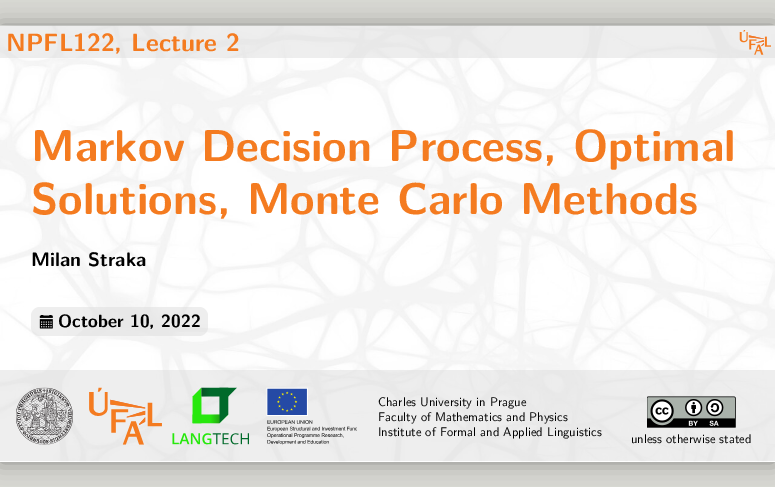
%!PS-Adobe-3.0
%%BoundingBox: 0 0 775 487
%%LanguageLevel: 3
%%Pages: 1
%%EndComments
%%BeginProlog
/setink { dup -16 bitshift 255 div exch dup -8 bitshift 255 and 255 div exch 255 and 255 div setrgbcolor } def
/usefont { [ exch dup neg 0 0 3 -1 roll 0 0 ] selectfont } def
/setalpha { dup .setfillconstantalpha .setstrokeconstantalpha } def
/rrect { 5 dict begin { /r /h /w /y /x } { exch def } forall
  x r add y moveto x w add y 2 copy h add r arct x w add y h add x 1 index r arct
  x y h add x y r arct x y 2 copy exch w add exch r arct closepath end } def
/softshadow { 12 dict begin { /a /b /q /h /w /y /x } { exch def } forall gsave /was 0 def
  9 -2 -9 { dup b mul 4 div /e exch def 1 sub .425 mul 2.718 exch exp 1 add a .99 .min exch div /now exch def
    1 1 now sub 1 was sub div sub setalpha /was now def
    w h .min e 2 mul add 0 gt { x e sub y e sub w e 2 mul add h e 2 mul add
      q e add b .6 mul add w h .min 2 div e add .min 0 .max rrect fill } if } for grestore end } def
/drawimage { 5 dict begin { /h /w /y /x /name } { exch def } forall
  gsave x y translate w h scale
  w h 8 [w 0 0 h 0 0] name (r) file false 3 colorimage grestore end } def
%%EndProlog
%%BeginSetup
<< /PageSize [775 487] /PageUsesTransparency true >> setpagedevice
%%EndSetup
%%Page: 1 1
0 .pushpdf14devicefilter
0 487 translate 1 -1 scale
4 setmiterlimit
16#D7D8D2 setink
0 0 775 487 rectfill
16#888888 setink
0 26 775 436 0 10.5 1 softshadow
16#FFFFFF setink
0 26 775 436 rectfill
(img1.raw) 0 25 775 437 drawimage
0.5 setalpha
16#DDDDDD setink
0 26 775 32 rectfill
1 setalpha
(img2.raw) 739 30 32 25 drawimage
/LatinModernSans-Bold 25 usefont
16#F47B20 setink
6 51 moveto (NPFL122, Lecture 2) show
/LatinModernSans-Bold 44.5 usefont
31 161 moveto (Markov Decision Process, Optimal) show
31 214 moveto (Solutions, Monte Carlo Methods) show
/LatinModernSans-Bold 19.5 usefont
16#000000 setink
31 266 moveto (Milan Straka) show
0.5 setalpha
16#DDDDDD setink
31 307 177 29 9 rrect fill
1 setalpha
(img3.raw) 39 315 14 14 drawimage
/LatinModernSans-Bold 17.75 usefont
16#000000 setink
58 327 moveto (October 10, 2022) show
0.5 setalpha
16#DDDDDD setink
0 370 775 91 rectfill
1 setalpha
(img4.raw) 16 387 341 58 drawimage
/LatinModernSans-Regular 12.5 usefont
16#000000 setink
[
    [(Charles University in Prague) 378 406]
    [(Faculty of Mathematics and Physics) 378 421]
    [(Institute of Formal and Applied Linguistics) 378 436]
] { aload pop moveto show } forall
(img5.raw) 647 396 89 32 drawimage
631 443 moveto (unless otherwise stated) show
.poppdf14devicefilter showpage
%%EOF
